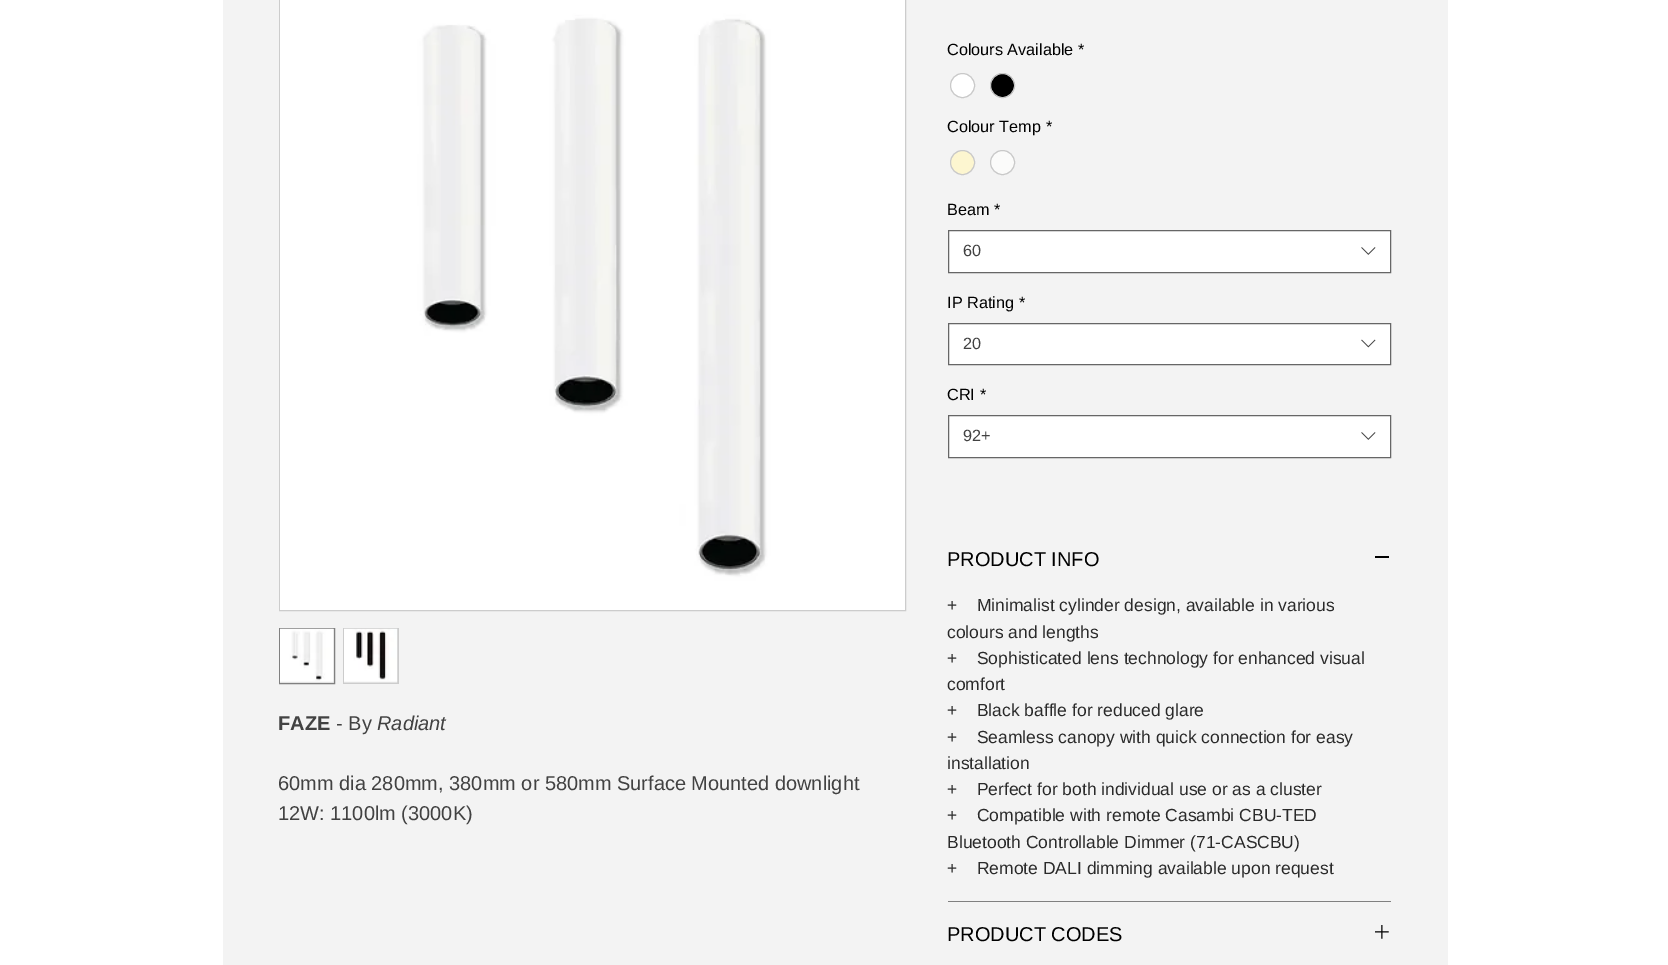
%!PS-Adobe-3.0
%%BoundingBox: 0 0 1668 965
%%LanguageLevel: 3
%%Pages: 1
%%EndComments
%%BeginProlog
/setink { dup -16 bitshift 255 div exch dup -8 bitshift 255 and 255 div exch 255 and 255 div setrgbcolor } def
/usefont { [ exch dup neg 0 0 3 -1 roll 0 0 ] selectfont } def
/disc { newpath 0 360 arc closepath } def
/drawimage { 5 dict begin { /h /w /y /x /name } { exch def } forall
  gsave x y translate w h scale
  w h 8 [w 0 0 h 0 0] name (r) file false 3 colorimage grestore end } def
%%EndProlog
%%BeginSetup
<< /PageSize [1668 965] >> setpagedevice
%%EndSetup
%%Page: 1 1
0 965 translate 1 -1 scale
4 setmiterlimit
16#FFFFFF setink
0 0 1668 965 rectfill
16#F3F3F3 setink
223 0 1225 965 rectfill
16#CCCCCC setink
279.5 -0.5 626 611 rectstroke
(img1.raw) 280 0 625 610 drawimage
279.5 628.5 moveto 334.5 628.5 lineto 334.5 683.5 lineto 279.5 683.5 lineto closepath gsave fill grestore
16#808080 setink
stroke
(img2.raw) 280 628 54 55 drawimage
16#CCCCCC setink
343 628 56 56 rectfill
(img3.raw) 344 628 54 55 drawimage
/LiberationSans-Bold 20 usefont
16#424242 setink
278 730 moveto (FAZE) show
/LiberationSans-Regular 20 usefont
336 730 moveto (- By) show
/LiberationSans-Italic 20 usefont
377 730 moveto (Radiant) show
/LiberationSans-Regular 20 usefont
278 790 moveto (60mm dia 280mm, 380mm or 580mm Surface Mounted downlight) show
278 820 moveto (12W: 1100lm \(3000K\)) show
/LiberationSans-Regular 16.25 usefont
16#000000 setink
947 55 moveto (Colours Available) show
1078 55 moveto (*) show
16#FFFFFF setink
962.5 85.5 12 disc gsave fill grestore
16#C9C9C9 setink
stroke
16#000000 setink
1002.5 85.5 12 disc gsave fill grestore
16#C9C9C9 setink
stroke
16#000000 setink
947 132 moveto (Colour Temp) show
1046 132 moveto (*) show
16#FDF6D0 setink
962.5 162.5 12 disc gsave fill grestore
16#C9C9C9 setink
stroke
16#FBFBFA setink
1002.5 162.5 12 disc gsave fill grestore
16#C9C9C9 setink
stroke
16#000000 setink
947 215 moveto (Beam) show
994 215 moveto (*) show
16#FFFFFF setink
948.5 230.5 moveto 1390.5 230.5 lineto 1390.5 272.5 lineto 948.5 272.5 lineto closepath gsave fill grestore
16#666666 setink
stroke
16#424242 setink
963 256 moveto (60) show
(img4.raw) 1361 247 15 8 drawimage
16#000000 setink
947 308 moveto (IP Rating) show
1019 308 moveto (*) show
16#FFFFFF setink
948.5 323.5 moveto 1390.5 323.5 lineto 1390.5 364.5 lineto 948.5 364.5 lineto closepath gsave fill grestore
16#666666 setink
stroke
16#424242 setink
963 349 moveto (20) show
(img5.raw) 1361 339 15 9 drawimage
16#000000 setink
947 400 moveto (CRI) show
980 400 moveto (*) show
16#FFFFFF setink
948.5 415.5 moveto 1390.5 415.5 lineto 1390.5 457.5 lineto 948.5 457.5 lineto closepath gsave fill grestore
16#666666 setink
stroke
16#424242 setink
963 441 moveto (92+) show
(img4.raw) 1361 432 15 8 drawimage
16#808080 setink
948 901 443 1 rectfill
/LiberationSans-Regular 20 usefont
16#000000 setink
947 566 moveto (PRODUCT INFO) show
1375 556 14 2 rectfill
/LiberationSans-Regular 17.5 usefont
16#2A2A2A setink
[
    [(+    Minimalist cylinder design, available in various) 947 611]
    [(colours and lengths) 947 638]
    [(+    Sophisticated lens technology for enhanced visual) 947 664]
    [(comfort) 947 690]
    [(+    Black baffle for reduced glare) 947 716]
    [(+    Seamless canopy with quick connection for easy) 947 743]
    [(installation) 947 769]
    [(+    Perfect for both individual use or as a cluster) 947 795]
    [(+    Compatible with remote Casambi CBU-TED) 947 821]
    [(Bluetooth Controllable Dimmer \(71-CASCBU\)) 947 848]
    [(+    Remote DALI dimming available upon request) 947 874]
] { aload pop moveto show } forall
/LiberationSans-Regular 20 usefont
16#000000 setink
947 941 moveto (PRODUCT CODES) show
(img6.raw) 1375 925 14 14 drawimage
showpage
%%EOF
